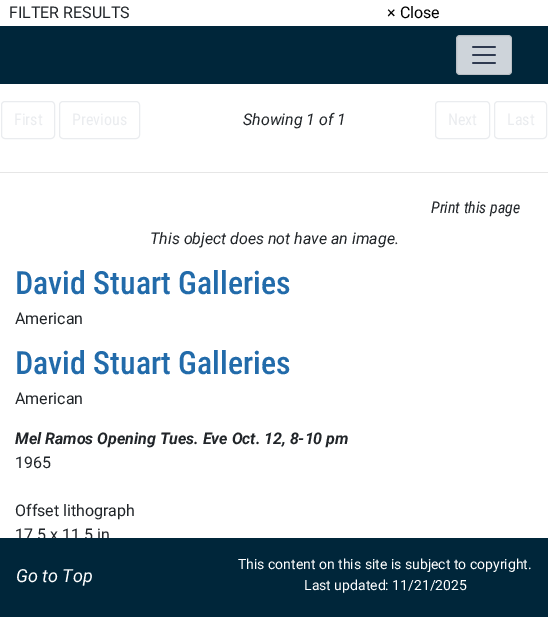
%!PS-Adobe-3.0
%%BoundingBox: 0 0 548 617
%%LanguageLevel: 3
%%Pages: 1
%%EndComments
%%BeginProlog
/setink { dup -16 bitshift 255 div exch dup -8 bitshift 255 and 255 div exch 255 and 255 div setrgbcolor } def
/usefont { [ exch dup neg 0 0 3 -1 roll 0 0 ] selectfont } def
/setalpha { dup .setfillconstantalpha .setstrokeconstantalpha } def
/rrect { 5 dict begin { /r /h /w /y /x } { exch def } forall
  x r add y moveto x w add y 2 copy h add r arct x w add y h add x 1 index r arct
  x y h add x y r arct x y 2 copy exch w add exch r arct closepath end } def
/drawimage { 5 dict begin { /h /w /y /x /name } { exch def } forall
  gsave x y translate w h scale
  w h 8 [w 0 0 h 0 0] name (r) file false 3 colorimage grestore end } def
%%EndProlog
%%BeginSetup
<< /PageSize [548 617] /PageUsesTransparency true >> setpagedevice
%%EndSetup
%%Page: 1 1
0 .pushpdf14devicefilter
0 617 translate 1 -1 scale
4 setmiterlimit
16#FFFFFF setink
0 0 548 617 rectfill
/Roboto-Regular 16 usefont
16#212529 setink
9 18 moveto (FILTER RESULTS) show
16#000000 setink
387 18 moveto (× Close) show
16#00263A setink
0 26 548 58 rectfill
16#CED4DA setink
456 35 56 40 4 rrect fill
0.1 setalpha
16#000000 setink
456.5 35.5 55 39 3.5 rrect stroke
1 setalpha
(img1.raw) 472 46 24 18 drawimage
16#EAECEF setink
1.5 101.5 53 37 3.5 rrect stroke
/RobotoCondensed-Regular 16 usefont
14 125 moveto (First) show
59.5 101.5 80 37 3.5 rrect stroke
72 125 moveto (Previous) show
/Roboto-Italic 16 usefont
16#212529 setink
243 125 moveto (Showing 1 of 1) show
16#EAECEF setink
435.5 101.5 54 37 3.5 rrect stroke
/RobotoCondensed-Regular 16 usefont
448 125 moveto (Next) show
494.5 101.5 52 37 3.5 rrect stroke
507 125 moveto (Last) show
16#E6E6E6 setink
0 172 548 1 rectfill
/RobotoCondensed-Italic 16 usefont
16#212529 setink
431 213 moveto (Print this page) show
/Roboto-Italic 16 usefont
150 244 moveto (This object does not have an image.) show
/RobotoCondensed-Medium 32 usefont
16#226BAA setink
15 294 moveto (David Stuart Galleries) show
/Roboto-Regular 16 usefont
16#212529 setink
15 324 moveto (American) show
/RobotoCondensed-Medium 32 usefont
16#226BAA setink
15 374 moveto (David Stuart Galleries) show
/Roboto-Regular 16 usefont
16#212529 setink
15 404 moveto (American) show
/Roboto-BoldItalic 16 usefont
15 444 moveto (Mel Ramos Opening Tues. Eve Oct. 12, 8-10 pm) show
/Roboto-Regular 16 usefont
[
    [(1965) 15 468]
    [(Offset lithograph) 15 516]
    [(17.5 x 11.5 in) 15 540]
] { aload pop moveto show } forall
16#00263A setink
0 538 548 79 rectfill
/Roboto-Italic 18 usefont
16#FFFFFF setink
16 582 moveto (Go to Top) show
/Roboto-Regular 14 usefont
238 569 moveto (This content on this site is subject to copyright.) show
304 590 moveto (Last updated: 11/21/2025) show
.poppdf14devicefilter showpage
%%EOF
